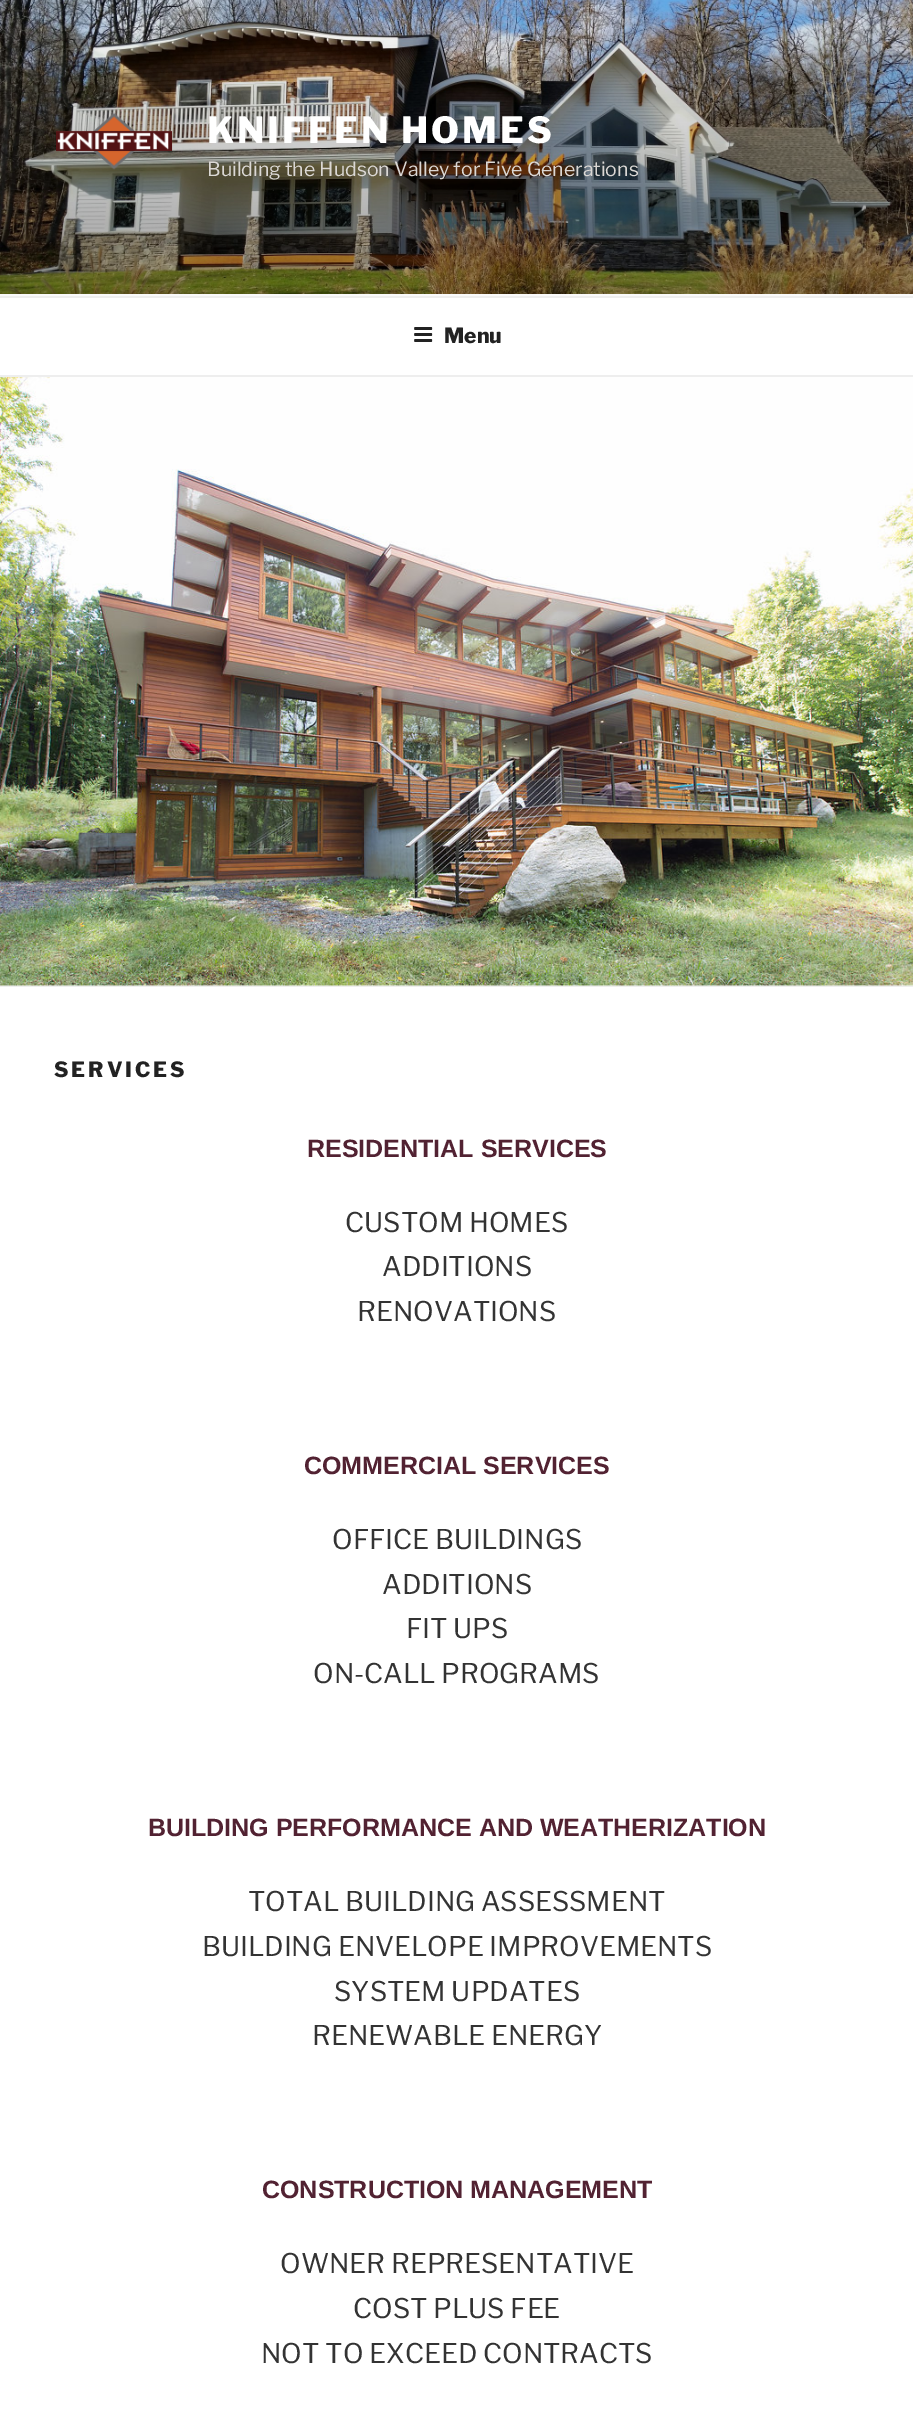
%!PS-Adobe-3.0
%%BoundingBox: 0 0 913 2435
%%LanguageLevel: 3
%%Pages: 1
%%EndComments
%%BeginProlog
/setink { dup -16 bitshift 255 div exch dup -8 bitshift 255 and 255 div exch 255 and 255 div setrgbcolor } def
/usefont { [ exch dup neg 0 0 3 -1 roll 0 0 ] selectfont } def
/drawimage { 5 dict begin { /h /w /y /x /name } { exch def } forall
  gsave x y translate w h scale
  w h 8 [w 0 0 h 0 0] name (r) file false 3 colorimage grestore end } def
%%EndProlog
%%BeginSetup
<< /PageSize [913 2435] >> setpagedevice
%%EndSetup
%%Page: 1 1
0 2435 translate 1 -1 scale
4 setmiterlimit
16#FAFAFA setink
0 0 913 2435 rectfill
(img1.raw) 0 0 913 294 drawimage
(img2.raw) 56 112 117 58 drawimage
/LibreFranklin-ExtraBold 36 usefont
16#FFFFFF setink
207 143 moveto 2.9 0 (KNIFFEN HOMES) ashow
/LibreFranklin-Regular 19.5 usefont
16#DBD8D5 setink
207 176 moveto (Building the Hudson Valley for Five Generations) show
[
    [0 298 913 77 16#FFFFFF]
    [0 296 913 2 16#EEEEEE]
    [0 375 913 2 16#EEEEEE]
] { aload pop setink rectfill } forall
(img3.raw) 414 327 19 15 drawimage
/LibreFranklin-ExtraBold 21 usefont
16#222222 setink
444 343 moveto (Menu) show
16#EEEEEE setink
0 986 913 1 rectfill
(img4.raw) 0 377 913 609 drawimage
16#FFFFFF setink
0 987 913 1448 rectfill
16#222222 setink
54 1077 moveto 3 0 (SERVICES) ashow
/LiberationSans-Bold 25 usefont
16#522232 setink
307 1157 moveto (RESIDENTIAL SERVICES) show
/LibreFranklin-Regular 27 usefont
16#333333 setink
[
    [(CUSTOM HOMES) 345 1232]
    [(ADDITIONS) 382 1276]
    [(RENOVATIONS) 357 1321]
] { aload pop moveto show } forall
/LiberationSans-Bold 25 usefont
16#522232 setink
304 1474 moveto (COMMERCIAL SERVICES) show
/LibreFranklin-Regular 27 usefont
16#333333 setink
[
    [(OFFICE BUILDINGS) 332 1549]
    [(ADDITIONS) 382 1594]
    [(FIT UPS) 406 1638]
    [(ON-CALL PROGRAMS) 313 1683]
] { aload pop moveto show } forall
/LiberationSans-Bold 25 usefont
16#522232 setink
148 1836 moveto (BUILDING PERFORMANCE AND WEATHERIZATION) show
/LibreFranklin-Regular 27 usefont
16#333333 setink
[
    [(TOTAL BUILDING ASSESSMENT) 248 1911]
    [(BUILDING ENVELOPE IMPROVEMENTS) 202 1956]
    [(SYSTEM UPDATES) 334 2001]
    [(RENEWABLE ENERGY) 312 2045]
] { aload pop moveto show } forall
/LiberationSans-Bold 25 usefont
16#522232 setink
262 2198 moveto (CONSTRUCTION MANAGEMENT) show
/LibreFranklin-Regular 27 usefont
16#333333 setink
[
    [(OWNER REPRESENTATIVE) 280 2273]
    [(COST PLUS FEE) 353 2318]
    [(NOT TO EXCEED CONTRACTS) 261 2363]
] { aload pop moveto show } forall
showpage
%%EOF
